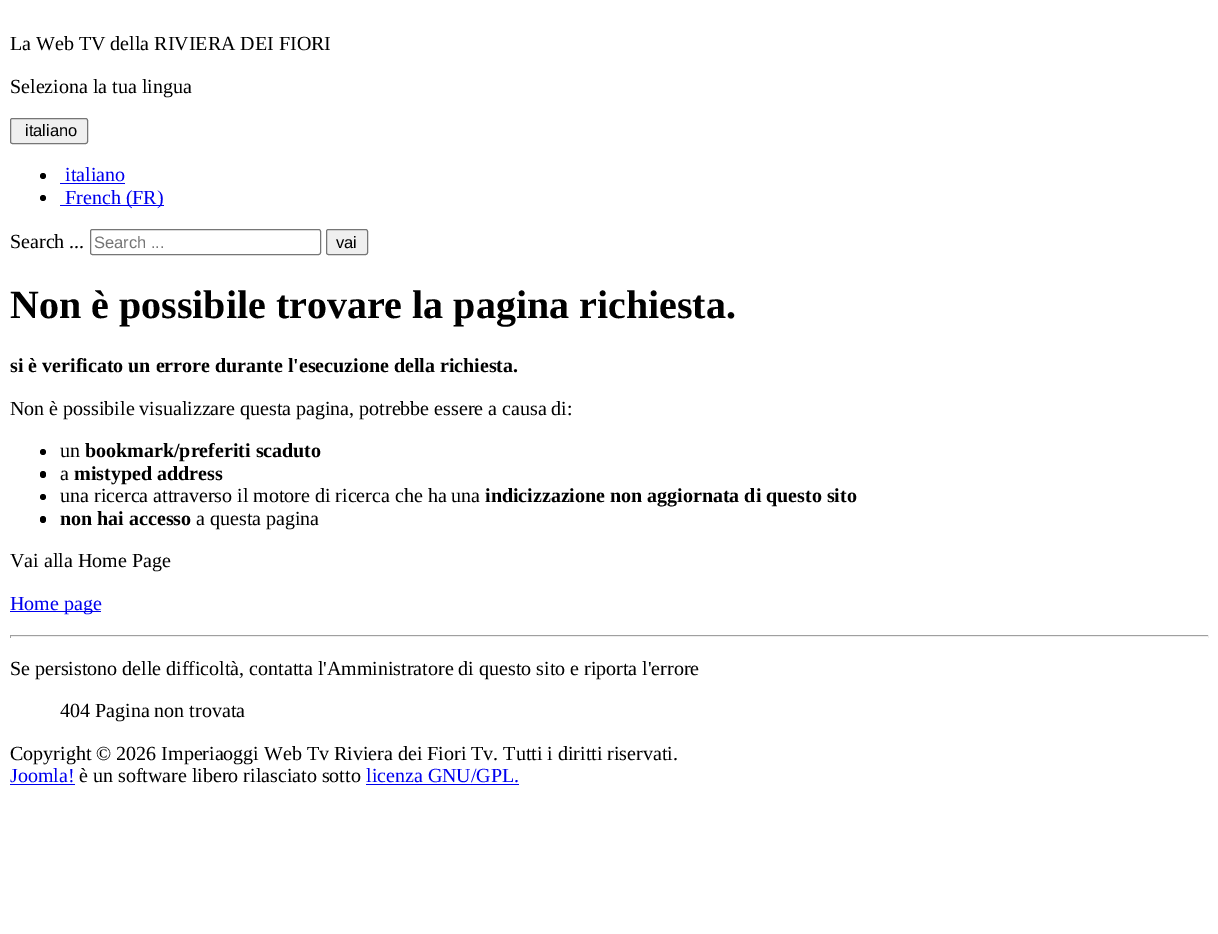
%!PS-Adobe-3.0
%%BoundingBox: 0 0 1218 934
%%LanguageLevel: 3
%%Pages: 1
%%EndComments
%%BeginProlog
/setink { dup -16 bitshift 255 div exch dup -8 bitshift 255 and 255 div exch 255 and 255 div setrgbcolor } def
/usefont { [ exch dup neg 0 0 3 -1 roll 0 0 ] selectfont } def
/disc { newpath 0 360 arc closepath } def
/rrect { 5 dict begin { /r /h /w /y /x } { exch def } forall
  x r add y moveto x w add y 2 copy h add r arct x w add y h add x 1 index r arct
  x y h add x y r arct x y 2 copy exch w add exch r arct closepath end } def
%%EndProlog
%%BeginSetup
<< /PageSize [1218 934] >> setpagedevice
%%EndSetup
%%Page: 1 1
0 934 translate 1 -1 scale
4 setmiterlimit
16#FFFFFF setink
0 0 1218 934 rectfill
/LiberationSerif-Regular 20 usefont
16#000000 setink
10 50 moveto (La Web TV della RIVIERA DEI FIORI) show
10 93 moveto (Seleziona la tua lingua) show
16#EFEFEF setink
10.5 118.5 77 25 2 rrect gsave fill grestore
16#767676 setink
stroke
/LiberationSans-Regular 16.5 usefont
16#000000 setink
25 136 moveto (italiano) show
43 176 3 disc fill
/LiberationSerif-Regular 20 usefont
16#0000EE setink
65 181 moveto (italiano) show
60 183 65 1 rectfill
16#000000 setink
43 198 3 disc fill
16#0000EE setink
60 205 104 1 rectfill
65 204 moveto (French \(FR\)) show
16#000000 setink
10 248 moveto (Search ...) show
16#767676 setink
90.5 229.5 230 25 2 rrect stroke
/LiberationSans-Regular 16.5 usefont
16#757575 setink
94 248 moveto (Search ...) show
16#EFEFEF setink
326.5 229.5 41 25 2 rrect gsave fill grestore
16#767676 setink
stroke
16#000000 setink
336 248 moveto (vai) show
/LiberationSerif-Bold 40 usefont
10 318 moveto (Non è possibile trovare la pagina richiesta.) show
/LiberationSerif-Bold 20 usefont
10 372 moveto (si è verificato un errore durante l'esecuzione della richiesta.) show
/LiberationSerif-Regular 20 usefont
10 415 moveto (Non è possibile visualizzare questa pagina, potrebbe essere a causa di:) show
43 452 3 disc fill
60 457 moveto (un) show
/LiberationSerif-Bold 20 usefont
85 457 moveto (bookmark/preferiti scaduto) show
40 471 6 7 3 rrect fill
/LiberationSerif-Regular 20 usefont
60 480 moveto (a) show
/LiberationSerif-Bold 20 usefont
74 480 moveto (mistyped address) show
43 497 3 disc fill
/LiberationSerif-Regular 20 usefont
60 502 moveto (una ricerca attraverso il motore di ricerca che ha una) show
/LiberationSerif-Bold 20 usefont
485 502 moveto (indicizzazione non aggiornata di questo sito) show
40 516 6 7 3 rrect fill
60 525 moveto (non hai accesso) show
/LiberationSerif-Regular 20 usefont
196 525 moveto (a questa pagina) show
10 567 moveto (Vai alla Home Page) show
16#0000EE setink
10 611 91 1 rectfill
10 610 moveto (Home page) show
[
    [10 635 1199 1 16#9F9F9F]
    [1208 635 1 3 16#EEEEEE]
    [10 636 1199 1 16#EEEEEE]
    [10 635 1 3 16#9F9F9F]
] { aload pop setink rectfill } forall
16#000000 setink
[
    [(Se persistono delle difficoltà, contatta l'Amministratore di questo sito e riporta l'errore) 10 675]
    [(404 Pagina non trovata) 60 717]
    [(Copyright © 2026 Imperiaoggi Web Tv Riviera dei Fiori Tv. Tutti i diritti riservati.) 10 760]
] { aload pop moveto show } forall
16#0000EE setink
10 782 moveto (Joomla!) show
10 784 65 1 rectfill
16#000000 setink
79 782 moveto (è un software libero rilasciato sotto) show
16#0000EE setink
366 782 moveto (licenza GNU/GPL.) show
366 784 153 1 rectfill
showpage
%%EOF
